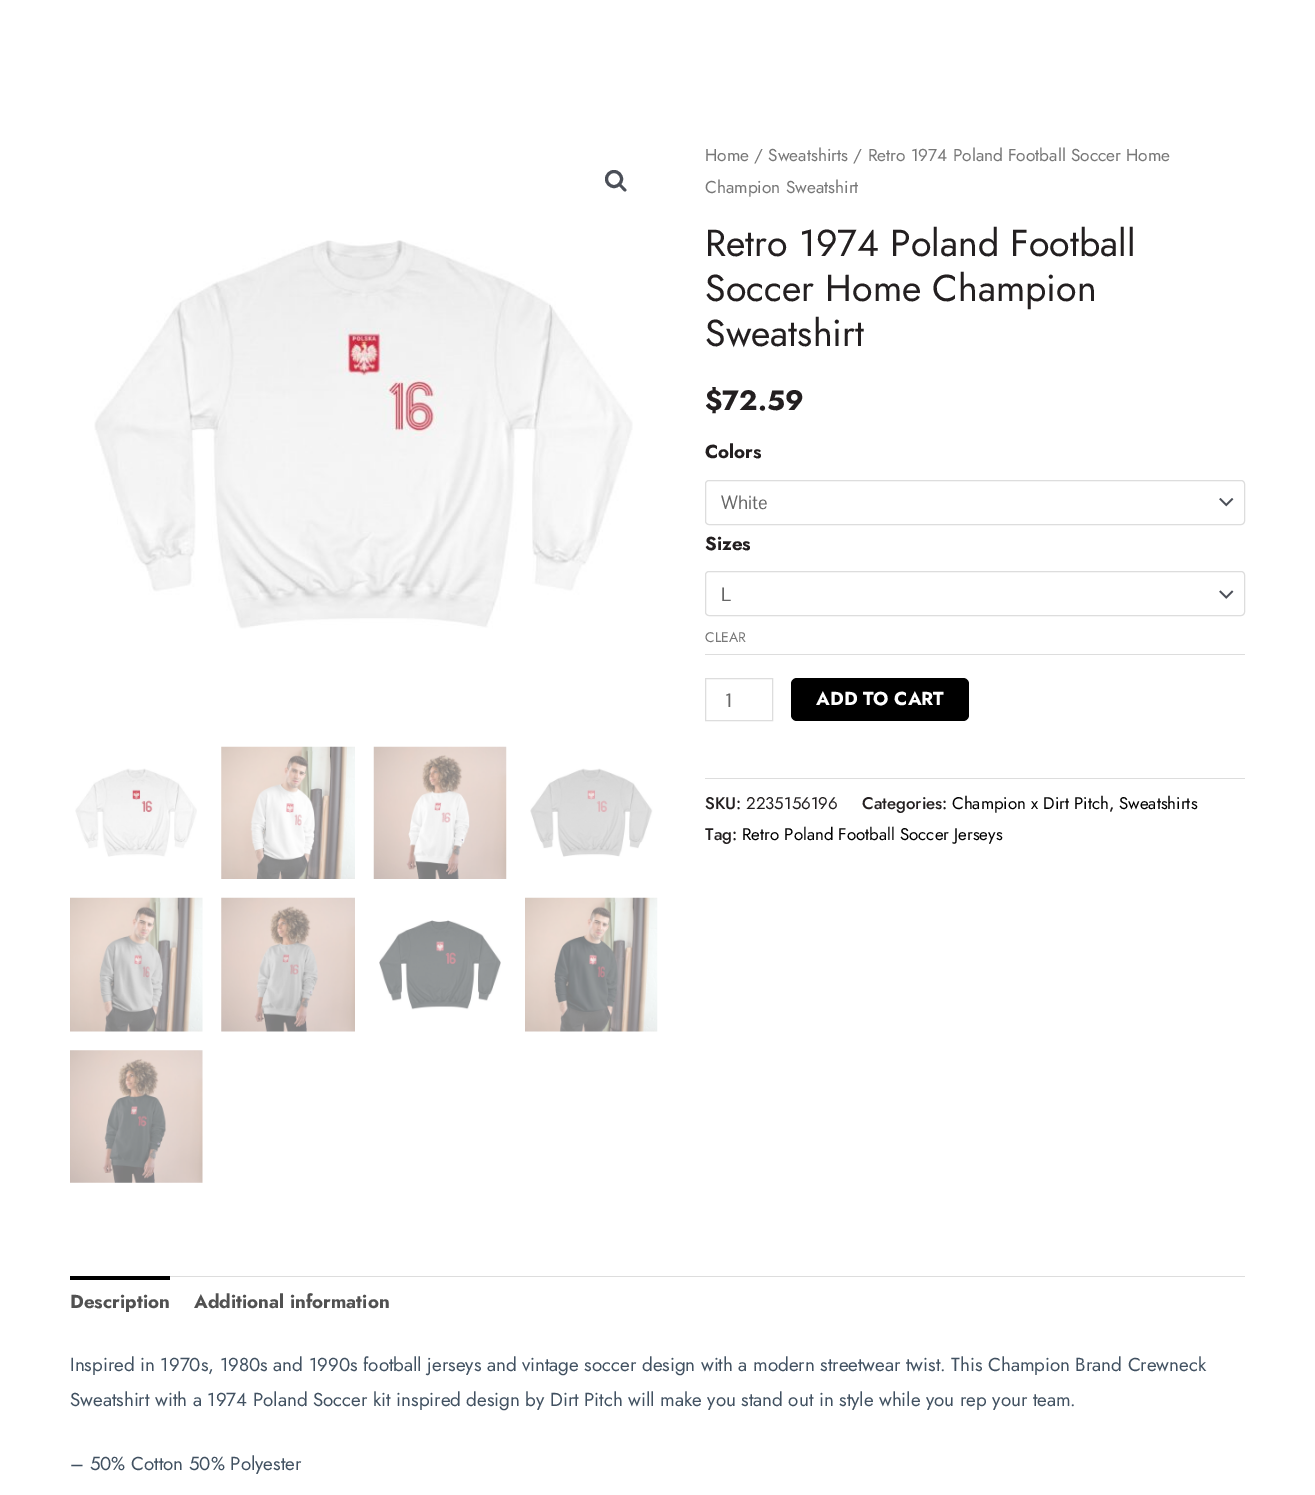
%!PS-Adobe-3.0
%%BoundingBox: 0 0 1315 1495
%%LanguageLevel: 3
%%Pages: 1
%%EndComments
%%BeginProlog
/setink { dup -16 bitshift 255 div exch dup -8 bitshift 255 and 255 div exch 255 and 255 div setrgbcolor } def
/usefont { [ exch dup neg 0 0 3 -1 roll 0 0 ] selectfont } def
/disc { newpath 0 360 arc closepath } def
/rrect { 5 dict begin { /r /h /w /y /x } { exch def } forall
  x r add y moveto x w add y 2 copy h add r arct x w add y h add x 1 index r arct
  x y h add x y r arct x y 2 copy exch w add exch r arct closepath end } def
/drawimage { 5 dict begin { /h /w /y /x /name } { exch def } forall
  gsave x y translate w h scale
  w h 8 [w 0 0 h 0 0] name (r) file false 3 colorimage grestore end } def
%%EndProlog
%%BeginSetup
<< /PageSize [1315 1495] >> setpagedevice
%%EndSetup
%%Page: 1 1
0 1495 translate 1 -1 scale
4 setmiterlimit
16#FFFFFF setink
0 0 1315 1495 rectfill
16#4B4F58 setink
3 setlinewidth
614 179 7.5 disc stroke
619 184 moveto 620.5 182.5 622.5 186 623.5 186.5 curveto 624 187.5 627.5 189.5 626 191 curveto 624.5 192.5 622.5 189.5 621.5 188.5 curveto 621 187.5 617.5 185.5 619 184 curveto closepath fill
(img1.raw) 94 240 539 389 drawimage
(img2.raw) 75 768 122 89 drawimage
(img3.raw) 221 746 134 133 drawimage
(img4.raw) 373 746 134 133 drawimage
(img5.raw) 530 768 123 89 drawimage
(img6.raw) 70 897 133 135 drawimage
(img7.raw) 221 897 134 135 drawimage
(img8.raw) 379 920 122 90 drawimage
(img9.raw) 525 897 133 135 drawimage
(img10.raw) 70 1050 133 133 drawimage
/Jost-Regular 17.25 usefont
16#777777 setink
705 161 moveto (Home / Sweatshirts / Retro 1974 Poland Football Soccer Home) show
705 193 moveto (Champion Sweatshirt) show
/Jost-Regular 37.5 usefont
16#231F20 setink
[
    [(Retro 1974 Poland Football) 705 256]
    [(Soccer Home Champion) 705 301]
    [(Sweatshirt) 705 346]
] { aload pop moveto show } forall
/Jost-Bold 28 usefont
705 410 moveto ($72.59) show
16#DDDDDD setink
705 654 540 1 rectfill
/Jost-Bold 18.75 usefont
16#231F20 setink
705 458 moveto (Colors) show
(img11.raw) 1219 498 15 9 drawimage
16#DDDDDD setink
1 setlinewidth
705.5 480.5 539 44 3.5 rrect stroke
/PontanoSans-Regular 18.75 usefont
16#666666 setink
721 509 moveto (White) show
/Jost-Bold 18.75 usefont
16#231F20 setink
705 550 moveto (Sizes) show
(img12.raw) 1219 590 15 9 drawimage
16#DDDDDD setink
705.5 571.5 539 44 3.5 rrect stroke
/PontanoSans-Regular 18.75 usefont
16#666666 setink
721 601 moveto (L) show
/Jost-Regular 14 usefont
16#777777 setink
705 642 moveto (CLEAR) show
16#DDDDDD setink
705.5 678.5 67 42 rectstroke
/PontanoSans-Regular 18.75 usefont
16#666666 setink
725 707 moveto (1) show
16#000000 setink
791 678 178 43 6 rrect fill
/Jost-Bold 18.75 usefont
16#FFFFFF setink
816 705 moveto (ADD TO CART) show
16#DDDDDD setink
705 778 540 1 rectfill
/Jost-Medium 16.9 usefont
16#231F20 setink
705 809 moveto (SKU:) show
/Jost-Regular 16.9 usefont
746 809 moveto (2235156196) show
/Jost-Medium 16.9 usefont
862 809 moveto (Categories:) show
/Jost-Regular 16.9 usefont
16#000000 setink
952 809 moveto (Champion x Dirt Pitch) show
/Jost-Medium 16.9 usefont
16#231F20 setink
1109 809 moveto (,) show
/Jost-Regular 16.9 usefont
16#000000 setink
1119 809 moveto (Sweatshirts) show
/Jost-Medium 16.9 usefont
16#231F20 setink
705 840 moveto (Tag:) show
/Jost-Regular 16.9 usefont
16#000000 setink
742 840 moveto (Retro Poland Football Soccer Jerseys) show
16#DDDDDD setink
170 1276 1075 1 rectfill
16#000000 setink
70 1276 100 4 rectfill
/Jost-Bold 18.75 usefont
16#515151 setink
70 1308 moveto (Description) show
194 1308 moveto (Additional information) show
/Jost-Regular 18.75 usefont
16#415161 setink
[
    [(Inspired in 1970s, 1980s and 1990s football jerseys and vintage soccer design with a modern streetwear twist. This Champion Brand Crewneck) 70 1371]
    [(Sweatshirt with a 1974 Poland Soccer kit inspired design by Dirt Pitch will make you stand out in style while you rep your team.) 70 1406]
    [(– 50% Cotton 50% Polyester) 70 1470]
] { aload pop moveto show } forall
showpage
%%EOF
